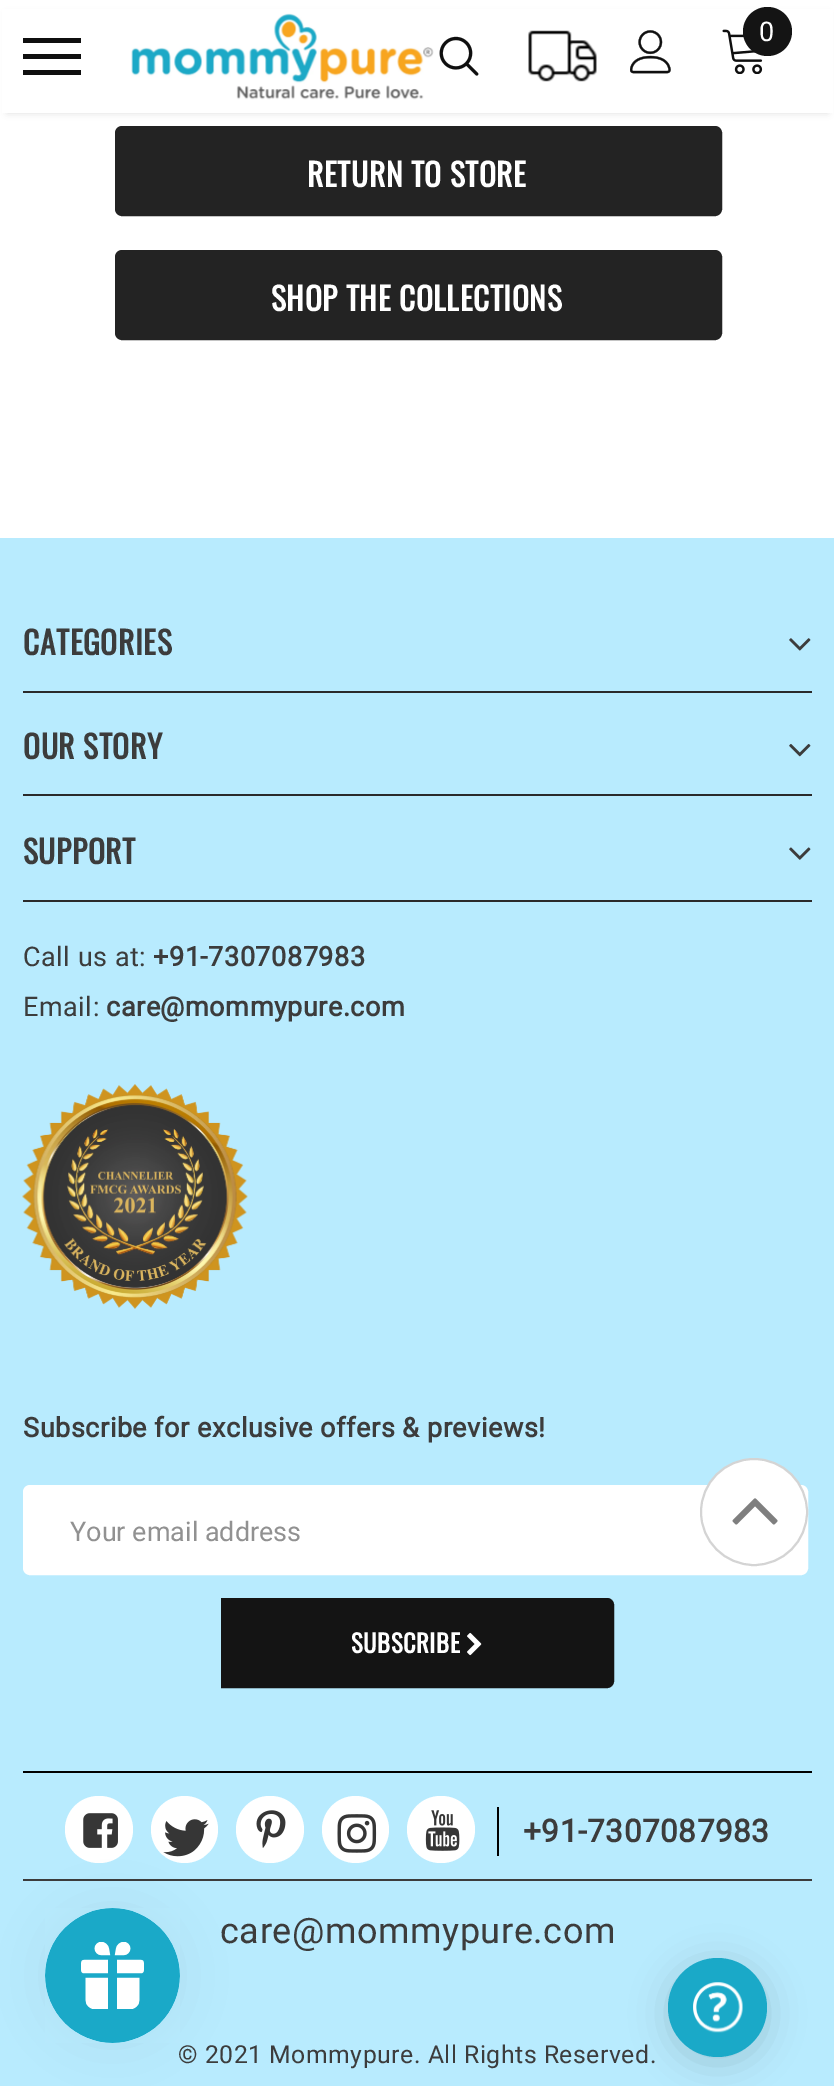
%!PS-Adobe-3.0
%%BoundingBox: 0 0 834 2086
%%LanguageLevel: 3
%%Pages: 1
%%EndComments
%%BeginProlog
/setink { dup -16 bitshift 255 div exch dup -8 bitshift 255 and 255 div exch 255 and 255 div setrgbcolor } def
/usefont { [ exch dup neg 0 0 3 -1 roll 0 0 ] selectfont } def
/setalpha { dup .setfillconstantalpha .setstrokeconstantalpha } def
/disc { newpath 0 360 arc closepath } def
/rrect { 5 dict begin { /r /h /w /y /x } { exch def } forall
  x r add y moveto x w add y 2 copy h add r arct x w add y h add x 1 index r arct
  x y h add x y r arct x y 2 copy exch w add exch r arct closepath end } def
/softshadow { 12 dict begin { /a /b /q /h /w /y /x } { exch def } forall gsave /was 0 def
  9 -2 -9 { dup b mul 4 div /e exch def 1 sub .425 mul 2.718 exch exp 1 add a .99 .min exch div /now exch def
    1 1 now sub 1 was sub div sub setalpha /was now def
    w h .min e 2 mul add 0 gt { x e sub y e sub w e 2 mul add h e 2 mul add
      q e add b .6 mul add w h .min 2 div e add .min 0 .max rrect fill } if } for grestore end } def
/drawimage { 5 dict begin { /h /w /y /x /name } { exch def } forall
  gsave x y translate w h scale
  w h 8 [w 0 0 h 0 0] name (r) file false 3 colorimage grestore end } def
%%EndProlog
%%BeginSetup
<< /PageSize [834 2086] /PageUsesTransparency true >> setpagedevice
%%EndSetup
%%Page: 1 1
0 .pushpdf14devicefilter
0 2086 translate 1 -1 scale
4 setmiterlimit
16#FFFFFF setink
0 0 834 2086 rectfill
16#000000 setink
7 14 821 99 0 3.5 0.12 softshadow
[
    [2 9 831 104 16#FFFFFF]
    [23 54 58 5 16#0F0F0F]
    [23 38 58 5 16#0F0F0F]
    [23 70 58 5 16#0F0F0F]
] { aload pop setink rectfill } forall
(img1.raw) 131 13 303 87 drawimage
(img2.raw) 439 36 40 40 drawimage
(img3.raw) 528 30 69 52 drawimage
(img4.raw) 630 30 41 44 drawimage
(img5.raw) 722 29 41 45 drawimage
16#141414 setink
767.5 31.5 24.5 disc fill
/Roboto-Regular 27 usefont
16#FFFFFF setink
759 41 moveto 0.55 0 (0) ashow
16#B8EBFE setink
0 538 834 1548 rectfill
16#000000 setink
668 1964 99 99 49.5 18 0.15 softshadow
16#1AA9C8 setink
717.5 2007.5 49.5 disc fill
(img6.raw) 693 1982 50 51 drawimage
16#232323 setink
116 127 605 88 6 rrect gsave fill grestore
2 setlinewidth
stroke
/Oswald-Bold 31.5 usefont
16#FFFFFF setink
307 187 moveto 0.6 0 (RETURN TO STORE) ashow
16#232323 setink
116 251 605 88 6 rrect gsave fill grestore
stroke
16#FFFFFF setink
271 311 moveto 0.6 0 (SHOP THE COLLECTIONS) ashow
16#2A2A2A setink
23 691 789 2 rectfill
16#3C3C3C setink
23 655 moveto 0.6 0 (CATEGORIES) ashow
(img7.raw) 789 638 22 13 drawimage
16#2A2A2A setink
23 794 789 2 rectfill
16#3C3C3C setink
23 759 moveto 0.6 0 (OUR STORY) ashow
(img8.raw) 789 744 22 13 drawimage
16#2A2A2A setink
23 900 789 2 rectfill
16#3C3C3C setink
23 864 moveto 0.6 0 (SUPPORT) ashow
(img9.raw) 789 847 22 13 drawimage
/Roboto-Regular 27 usefont
23 966 moveto 0.55 0 (Call us at:) ashow
/Roboto-Bold 27 usefont
153 966 moveto 0.55 0 (+91-7307087983) ashow
/Roboto-Regular 27 usefont
23 1016 moveto 0.55 0 (Email:) ashow
/Roboto-Bold 27 usefont
106 1016 moveto 0.55 0 (care@mommypure.com) ashow
(img10.raw) 22 1084 226 225 drawimage
23 1437 moveto 0.55 0 (Subscribe for exclusive offers & previews!) ashow
16#FFFFFF setink
24 1486 783 88 6 rrect gsave fill grestore
stroke
/Roboto-Regular 27 usefont
16#919191 setink
70 1541 moveto (Your email address) show
16#141414 setink
222 1599 moveto 607 1599 lineto 610.5 1599 613 1601.5 613 1605 curveto 613 1681 lineto 613 1684.5 610.5 1687 607 1687 curveto 222 1687 lineto closepath gsave fill grestore
stroke
/Oswald-Bold 24.75 usefont
16#FFFFFF setink
351 1653 moveto 0.5 0 (SUBSCRIBE) ashow
(img11.raw) 467 1632 15 24 drawimage
16#000000 setink
23 1771 789 2 rectfill
16#3C3C3C setink
23 1879 789 2 rectfill
16#FFFFFF setink
65 1796 68 67 33.5 rrect fill
(img12.raw) 83 1813 35 35 drawimage
184.5 1829.5 33.5 disc fill
(img13.raw) 163 1819 46 38 drawimage
236 1796 68 67 33.5 rrect fill
(img14.raw) 256 1810 30 38 drawimage
355.5 1829.5 33.5 disc fill
(img15.raw) 337 1814 40 39 drawimage
407 1796 68 67 33.5 rrect fill
(img16.raw) 425 1810 35 41 drawimage
16#000000 setink
497 1807 2 49 rectfill
/Roboto-Bold 31.5 usefont
16#3C3C3C setink
523 1842 moveto 0.55 0 (+91-7307087983) ashow
/Roboto-Regular 36 usefont
220 1943 moveto 0.55 0 (care@mommypure.com) ashow
/Roboto-Regular 24.75 usefont
178 2063 moveto 0.55 0 (© 2021 Mommypure. All Rights Reserved.) ashow
16#FFFFFF setink
754 1512 53 disc gsave fill grestore
16#D4D4D4 setink
stroke
(img17.raw) 732 1498 46 27 drawimage
16#000000 setink
45 1908 135 135 67.5 28 0.05 softshadow
(img18.raw) 45 1908 135 135 drawimage
.poppdf14devicefilter showpage
%%EOF
